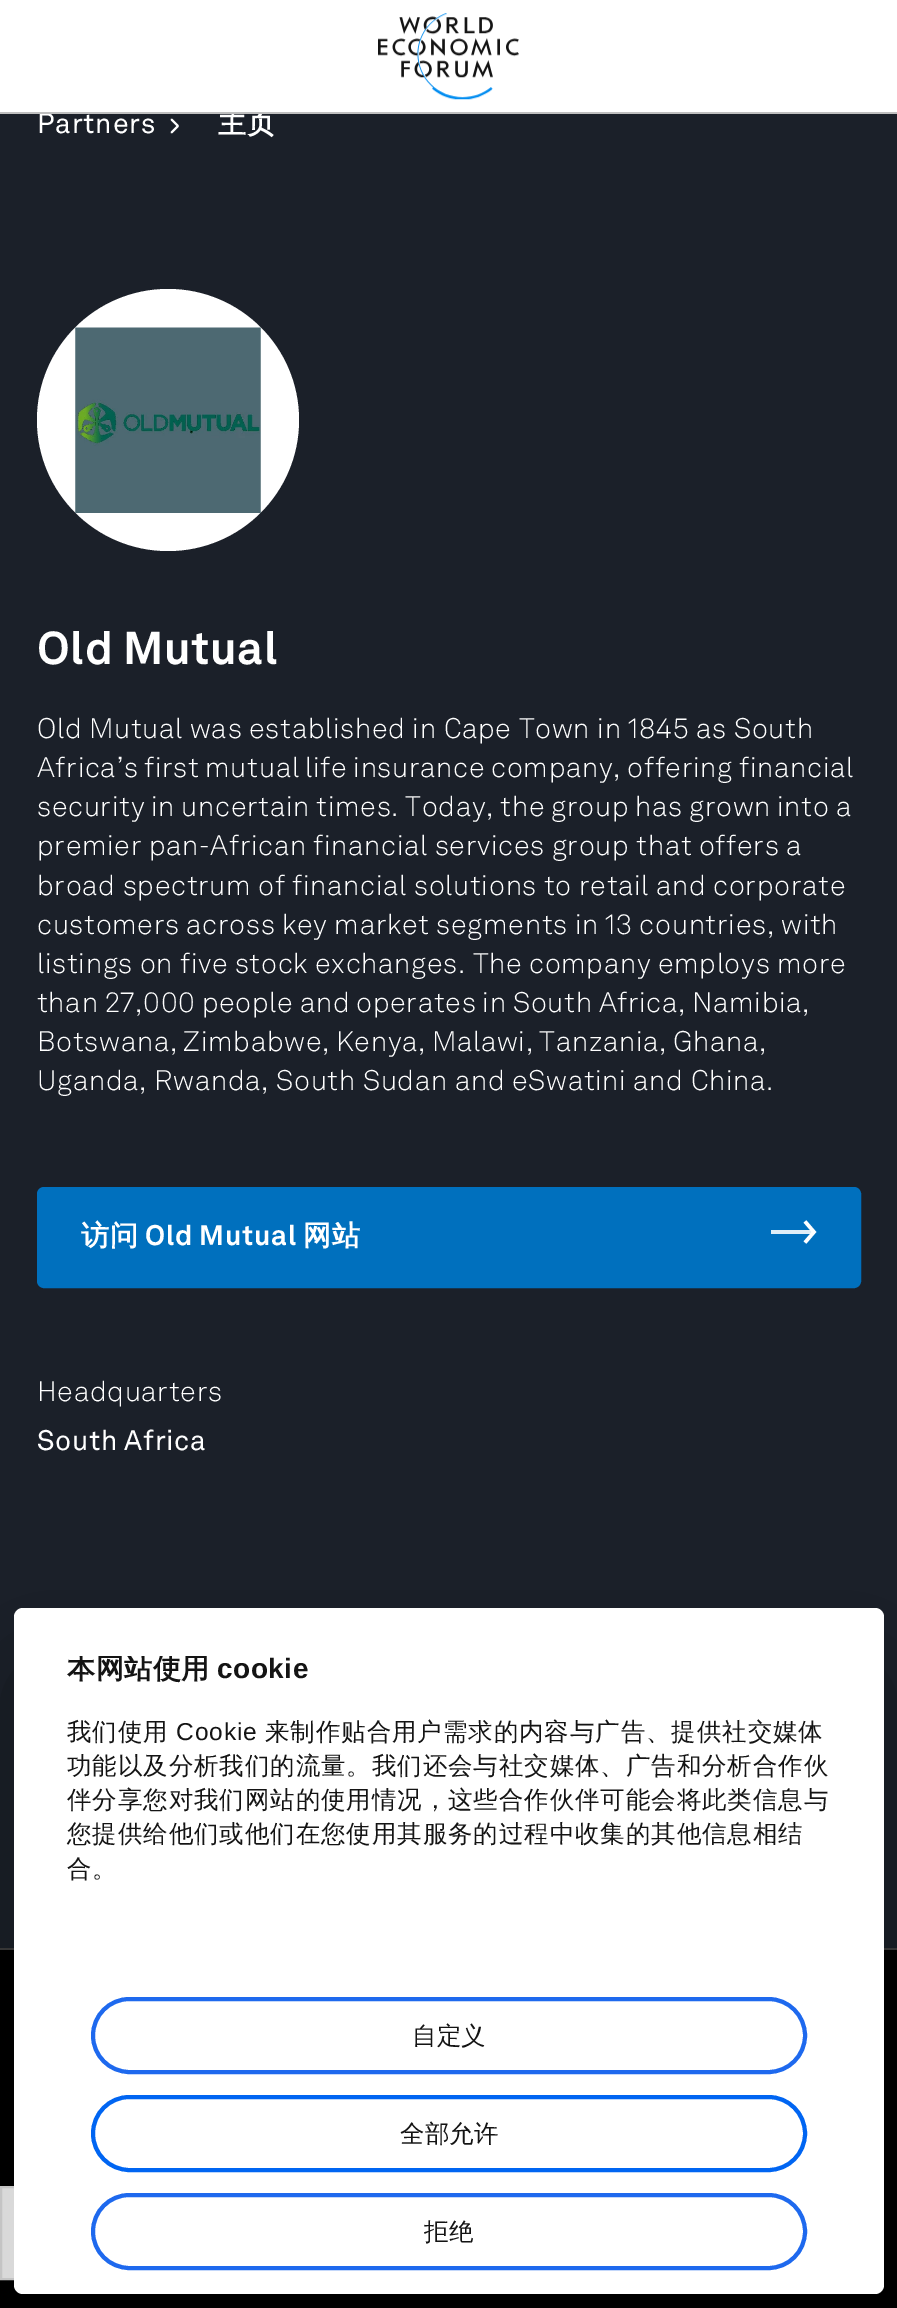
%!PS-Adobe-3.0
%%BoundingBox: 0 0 897 2308
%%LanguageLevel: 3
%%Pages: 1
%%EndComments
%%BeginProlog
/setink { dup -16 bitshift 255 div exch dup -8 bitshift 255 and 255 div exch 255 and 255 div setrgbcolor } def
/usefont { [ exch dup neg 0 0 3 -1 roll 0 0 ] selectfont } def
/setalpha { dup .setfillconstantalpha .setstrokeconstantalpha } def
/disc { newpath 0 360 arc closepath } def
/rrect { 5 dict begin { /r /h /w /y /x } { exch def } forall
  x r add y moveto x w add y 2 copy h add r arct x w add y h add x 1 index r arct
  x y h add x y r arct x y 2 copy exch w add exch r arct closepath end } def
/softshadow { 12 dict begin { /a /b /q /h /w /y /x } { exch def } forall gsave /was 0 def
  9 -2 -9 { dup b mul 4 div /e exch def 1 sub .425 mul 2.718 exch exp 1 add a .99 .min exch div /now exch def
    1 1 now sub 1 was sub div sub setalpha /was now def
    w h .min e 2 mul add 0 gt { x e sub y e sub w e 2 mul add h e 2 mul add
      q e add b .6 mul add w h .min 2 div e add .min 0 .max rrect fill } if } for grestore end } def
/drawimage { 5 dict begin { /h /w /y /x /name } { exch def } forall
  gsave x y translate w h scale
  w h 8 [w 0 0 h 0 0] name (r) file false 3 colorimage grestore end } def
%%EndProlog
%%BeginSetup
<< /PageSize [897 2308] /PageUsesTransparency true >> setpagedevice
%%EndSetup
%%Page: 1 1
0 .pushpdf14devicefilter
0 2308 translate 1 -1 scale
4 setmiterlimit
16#1B2029 setink
0 0 897 2308 rectfill
16#FFFFFF setink
0 0 897 112 rectfill
/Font-Regular 28 usefont
37 133 moveto 0.7 0 (Partners) ashow
/WenQuanYiZenHei-Bold 28 usefont
218 133 moveto 0.7 0 (主页) ashow
16#BFBFBF setink
0 112 897 2 rectfill
(img1.raw) 378 13 141 87 drawimage
16#FFFFFF setink
1.8 setlinewidth
1 setlinecap
1 setlinejoin
171.5 119.5 moveto 178 126 lineto 171.5 132.5 lineto stroke
168 420 131 disc fill
(img2.raw) 75 327 186 186 drawimage
/Font-Bold 45.5 usefont
37 664 moveto -1 0 32 0.7 0 (Old Mutual) awidthshow
/Font-Light 28 usefont
37 738 moveto -0.4 0 32 0.7 0 (Old Mutual was established in Cape Town in 1845 as South) awidthshow
37 777 moveto -1.5 0 32 0.7 0 (Africa’s first mutual life insurance company, offering financial) awidthshow
37 816 moveto -1.25 0 32 0.7 0 (security in uncertain times. Today, the group has grown into a) awidthshow
37 855 moveto -0.75 0 32 0.7 0 (premier pan-African financial services group that offers a) awidthshow
37 895 moveto -0.5 0 32 0.7 0 (broad spectrum of financial solutions to retail and corporate) awidthshow
37 934 moveto -0.75 0 32 0.7 0 (customers across key market segments in 13 countries, with) awidthshow
37 973 moveto -0.75 0 32 0.7 0 (listings on five stock exchanges. The company employs more) awidthshow
37 1012 moveto -1.25 0 32 0.7 0 (than 27,000 people and operates in South Africa, Namibia,) awidthshow
37 1051 moveto -1.5 0 32 0.7 0 (Botswana, Zimbabwe, Kenya, Malawi, Tanzania, Ghana,) awidthshow
37 1090 moveto -0.5 0 32 0.7 0 (Uganda, Rwanda, South Sudan and eSwatini and China.) awidthshow
16#0070BE setink
38 1188 822 99 6 rrect gsave fill grestore
2 setlinewidth
0 setlinecap
0 setlinejoin
stroke
/WenQuanYiZenHei-Bold 28 usefont
16#FFFFFF setink
81 1245 moveto 0.7 0 (访问) ashow
/Font-Bold 28 usefont
145 1245 moveto 0.7 0 (Old Mutual) ashow
/WenQuanYiZenHei-Bold 28 usefont
303 1245 moveto 0.7 0 (网站) ashow
16#DFEDF7 setink
771 1230 43 4 rectfill
16#FFFFFF setink
3.5 setlinewidth
805 1221.5 moveto 814 1232 lineto 805 1242.5 lineto stroke
/Font-Light 28 usefont
37 1401 moveto 0.7 0 (Headquarters) ashow
/Font-Regular 28 usefont
37 1450 moveto -1 0 32 0.7 0 (South Africa) awidthshow
[
    [0 1950 897 358 16#000000]
    [0 1948 897 2 16#404040]
    [2 2188 12 90 16#FFFFFF]
] { aload pop setink rectfill } forall
16#E6E6E6 setink
2 setlinewidth
1 2187 93 92 rectstroke
16#000000 setink
14 1664 870 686 9 59.5 0.3 softshadow
16#FFFFFF setink
14 1608 870 686 9 rrect fill
gsave
67 1656 764 269 rectclip
/WenQuanYiZenHei-Bold 28 usefont
16#141414 setink
67 1678 moveto 0.5 0 (本网站使用) ashow
grestore
/LiberationSans-Bold 28 usefont
16#141414 setink
217 1678 moveto 0.5 0 (cookie) ashow
/WenQuanYiZenHei-Medium 24.5 usefont
67 1740 moveto 0.9 0 (我们使用) ashow
/LiberationSans-Regular 24.5 usefont
176 1740 moveto 0.9 0 (Cookie) ashow
/WenQuanYiZenHei-Medium 24.5 usefont
265 1740 moveto 0.9 0 (来制作贴合用户需求的内容与广告、提供社交媒体) ashow
67 1774 moveto 0.9 0 (功能以及分析我们的流量。我们还会与社交媒体、广告和分析合作伙) ashow
67 1808 moveto 0.9 0 (伴分享您对我们网站的使用情况，这些合作伙伴可能会将此类信息与) ashow
67 1842 moveto 0.9 0 (您提供给他们或他们在您使用其服务的过程中收集的其他信息相结) ashow
67 1877 moveto 0.9 0 (合。) ashow
16#1E69EE setink
4 setlinewidth
93 1999 712 73 36.5 rrect stroke
16#141414 setink
412 2044 moveto (自定义) show
16#0065F2 setink
93 2097 712 73 36.5 rrect stroke
16#141414 setink
400 2142 moveto (全部允许) show
16#1E69EE setink
93 2195 712 73 36.5 rrect stroke
16#141414 setink
424 2240 moveto (拒绝) show
.poppdf14devicefilter showpage
%%EOF
